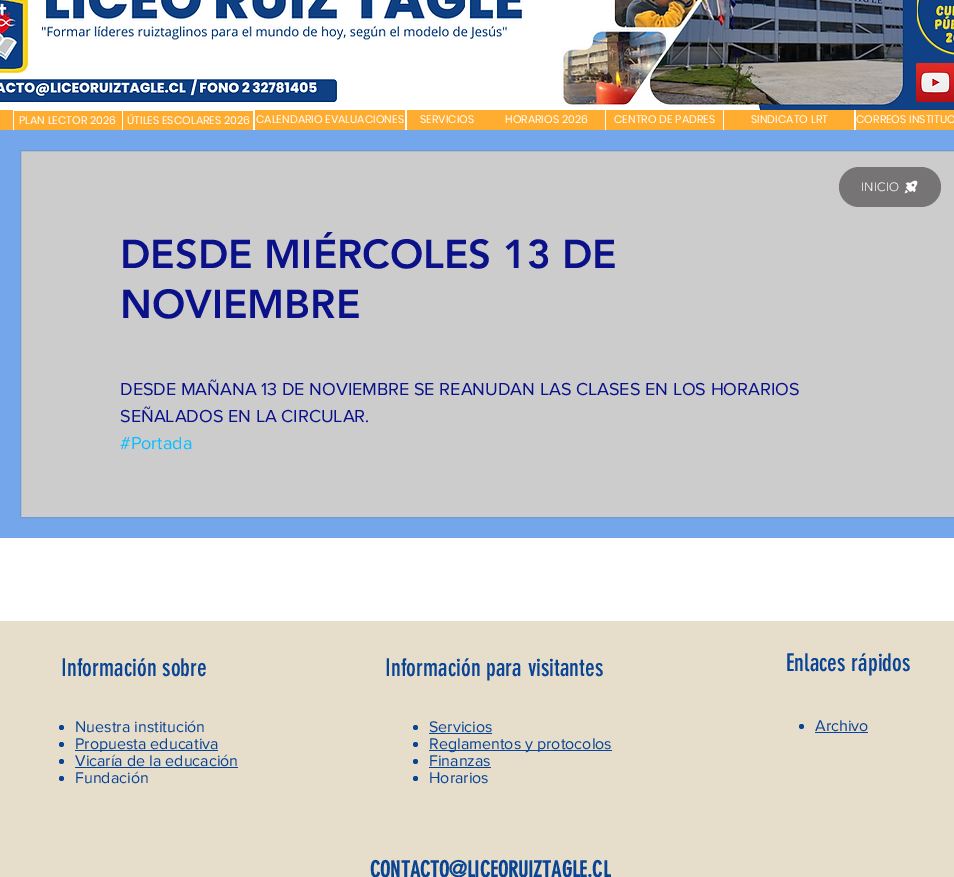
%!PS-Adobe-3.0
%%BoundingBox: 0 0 954 877
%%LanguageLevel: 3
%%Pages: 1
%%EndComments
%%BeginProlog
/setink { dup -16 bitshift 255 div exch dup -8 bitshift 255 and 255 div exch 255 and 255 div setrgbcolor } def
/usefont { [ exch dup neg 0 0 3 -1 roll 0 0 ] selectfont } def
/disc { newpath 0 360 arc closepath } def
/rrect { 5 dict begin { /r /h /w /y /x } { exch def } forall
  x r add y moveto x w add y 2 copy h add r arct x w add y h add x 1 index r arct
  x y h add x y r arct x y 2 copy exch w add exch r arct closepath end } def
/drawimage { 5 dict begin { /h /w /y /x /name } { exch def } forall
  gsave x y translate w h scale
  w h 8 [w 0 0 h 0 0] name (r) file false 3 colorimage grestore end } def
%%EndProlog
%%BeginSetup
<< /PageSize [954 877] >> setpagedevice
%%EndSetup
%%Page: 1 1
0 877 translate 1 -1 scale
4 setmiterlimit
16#FFFFFF setink
0 0 954 877 rectfill
(img1.raw) 0 0 954 110 drawimage
(img2.raw) 917 0 37 55 drawimage
(img3.raw) 916 63 38 39 drawimage
16#FFAD31 setink
0 110 13 20 rectfill
14 111 108 19 rectfill
/Poppins-Regular 11 usefont
16#FFFFFF setink
19 124 moveto (PLAN LECTOR 2026) show
16#FFAD31 setink
123 111 130 19 rectfill
16#FFFFFF setink
127 124 moveto (ÚTILES ESCOLARES 2026) show
16#FFAD31 setink
255 110 150 20 rectfill
16#FFFFFF setink
256 123 moveto (CALENDARIO EVALUACIONES) show
16#FFAD31 setink
407 110 198 20 rectfill
16#FFFFFF setink
420 123 moveto (SERVICIOS) show
505 123 moveto (HORARIOS 2026) show
16#FFAD31 setink
606 110 117 20 rectfill
16#FFFFFF setink
614 123 moveto (CENTRO DE PADRES) show
16#FFAD31 setink
724 110 130 20 rectfill
16#FFFFFF setink
751 123 moveto (SINDICATO LRT) show
16#FFAD31 setink
856 110 98 20 rectfill
16#FFFFFF setink
856 123 moveto (CORREOS INSTITUC) show
16#74A6EC setink
0 130 954 408 rectfill
16#CCCCCC setink
20.5 150.5 moveto 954.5 150.5 lineto 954.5 517.5 lineto 20.5 517.5 lineto closepath gsave fill grestore
16#7199D2 setink
stroke
16#767474 setink
839 167 102 40 20 rrect fill
/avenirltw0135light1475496-Light 12 usefont
16#FFFFFF setink
861 191 moveto 0.25 0 (INICIO) ashow
(img4.raw) 904 180 14 14 drawimage
/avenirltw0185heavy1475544-Black 40 usefont
16#0B1189 setink
120 268 moveto (DESDE MIÉRCOLES 13 DE) show
120 318 moveto (NOVIEMBRE) show
/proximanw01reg-Regular 18 usefont
120 395 moveto (DESDE MAÑANA 13 DE NOVIEMBRE SE REANUDAN LAS CLASES EN LOS HORARIOS) show
120 422 moveto (SEÑALADOS EN LA CIRCULAR.) show
16#0ABEFF setink
120 449 moveto (#Portada) show
16#E6DECA setink
0 621 954 256 rectfill
/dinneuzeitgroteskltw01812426-Regular 24 usefont
16#0A4495 setink
[
    [(Información sobre) 61 676]
    [(Información para visitantes) 385 676]
    [(Enlaces rápidos) 786 671]
] { aload pop moveto show } forall
61.5 727.5 2.5 disc fill
/proximanw01reg-Regular 16 usefont
75 732 moveto (Nuestra institución) show
61.5 744.5 2.5 disc fill
75 750 143 1 rectfill
75 749 moveto (Propuesta educativa) show
61.5 761.5 2.5 disc fill
75 766 moveto (Vicaría de la educación) show
75 767 163 1 rectfill
61.5 778.5 2.5 disc fill
75 783 moveto (Fundación) show
415.5 727.5 2.5 disc fill
429 732 moveto (Servicios) show
429 733 63 1 rectfill
415.5 744.5 2.5 disc fill
429 750 183 1 rectfill
429 749 moveto (Reglamentos y protocolos) show
415.5 761.5 2.5 disc fill
429 766 moveto (Finanzas) show
429 767 62 1 rectfill
415.5 778.5 2.5 disc fill
429 783 moveto (Horarios) show
801.5 726.5 2.5 disc fill
815 731 moveto (Archivo) show
815 732 53 1 rectfill
/dinneuzeitgroteskltw01812426-Bold 22 usefont
370 877 moveto (CONTACTO@LICEORUIZTAGLE.CL) show
showpage
%%EOF
